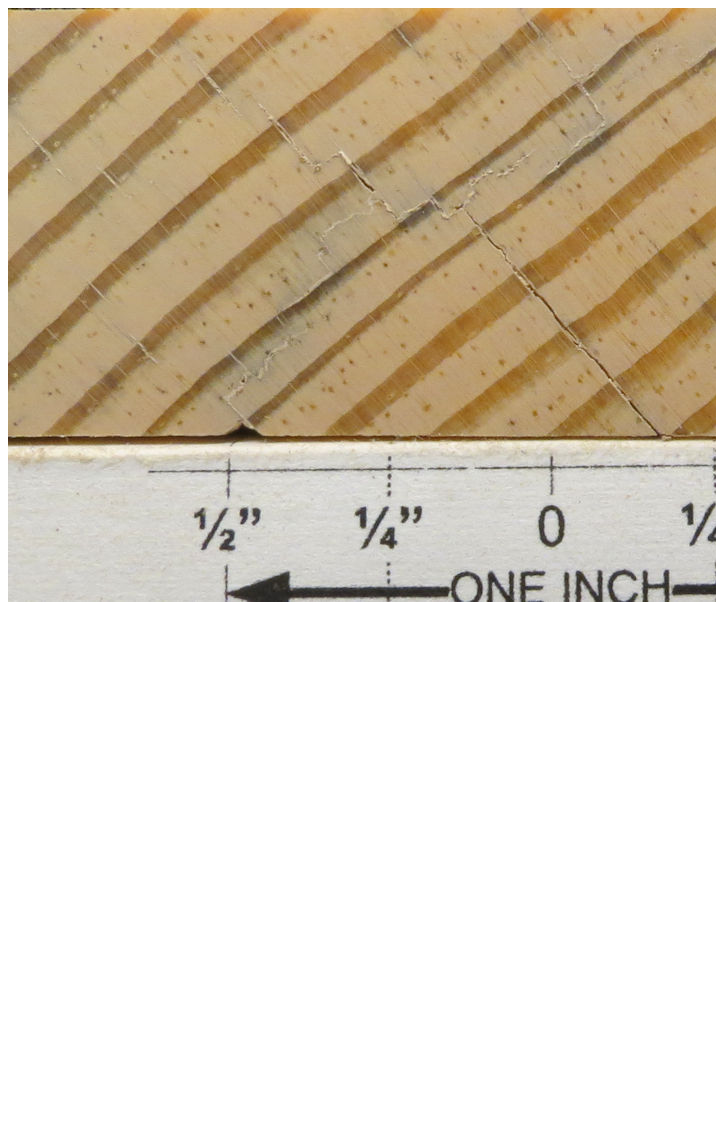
%!PS-Adobe-3.0
%%BoundingBox: 0 0 716 1127
%%LanguageLevel: 3
%%Pages: 1
%%EndComments
%%BeginProlog
/setink { dup -16 bitshift 255 div exch dup -8 bitshift 255 and 255 div exch 255 and 255 div setrgbcolor } def
/drawimage { 5 dict begin { /h /w /y /x /name } { exch def } forall
  gsave x y translate w h scale
  w h 8 [w 0 0 h 0 0] name (r) file false 3 colorimage grestore end } def
%%EndProlog
%%BeginSetup
<< /PageSize [716 1127] >> setpagedevice
%%EndSetup
%%Page: 1 1
0 1127 translate 1 -1 scale
4 setmiterlimit
16#FFFFFF setink
0 0 716 1127 rectfill
(img1.raw) 8 8 708 594 drawimage
showpage
%%EOF
